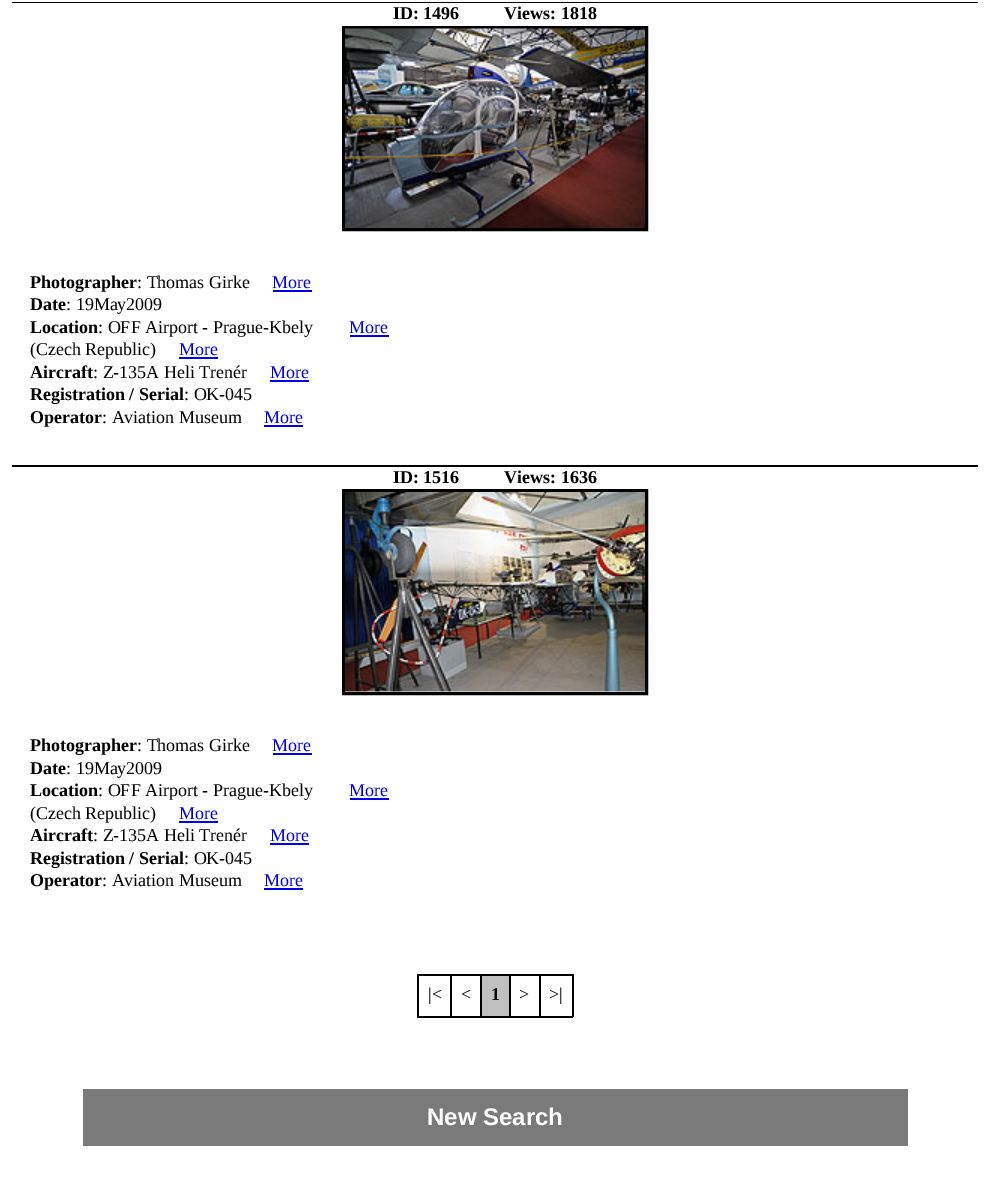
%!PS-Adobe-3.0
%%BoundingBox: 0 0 990 1182
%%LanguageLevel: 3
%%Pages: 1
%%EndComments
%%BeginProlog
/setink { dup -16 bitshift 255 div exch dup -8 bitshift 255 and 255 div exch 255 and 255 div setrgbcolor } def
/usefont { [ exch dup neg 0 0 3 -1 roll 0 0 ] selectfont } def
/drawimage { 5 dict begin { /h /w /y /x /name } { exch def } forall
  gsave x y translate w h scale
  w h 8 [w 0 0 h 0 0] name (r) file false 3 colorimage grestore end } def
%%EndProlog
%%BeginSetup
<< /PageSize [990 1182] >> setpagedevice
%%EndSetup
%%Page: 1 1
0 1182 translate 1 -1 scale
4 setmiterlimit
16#FFFFFF setink
0 0 990 1182 rectfill
16#000000 setink
12 2 966 1 rectfill
/LiberationSerif-Bold 18 usefont
393 19 moveto (ID: 1496          Views: 1818) show
3 setlinewidth
343.5 27.5 303 202 rectstroke
(img1.raw) 345 28 300 200 drawimage
30 288 moveto (Photographer) show
/LiberationSerif-Regular 18 usefont
137 288 moveto (: Thomas Girke) show
16#0000EE setink
272 288 moveto (More) show
273 290 39 2 rectfill
/LiberationSerif-Bold 18 usefont
16#000000 setink
30 310 moveto (Date) show
/LiberationSerif-Regular 18 usefont
66 310 moveto (: 19May2009) show
/LiberationSerif-Bold 18 usefont
30 333 moveto (Location) show
/LiberationSerif-Regular 18 usefont
98 333 moveto (: OFF Airport - Prague-Kbely) show
16#0000EE setink
349 333 moveto (More) show
350 335 39 2 rectfill
16#000000 setink
30 355 moveto (\(Czech Republic\)) show
16#0000EE setink
179 355 moveto (More) show
179 357 39 2 rectfill
/LiberationSerif-Bold 18 usefont
16#000000 setink
30 378 moveto (Aircraft) show
/LiberationSerif-Regular 18 usefont
93 378 moveto (: Z-135A Heli Trenér) show
16#0000EE setink
270 378 moveto (More) show
270 380 39 2 rectfill
/LiberationSerif-Bold 18 usefont
16#000000 setink
30 400 moveto (Registration / Serial) show
/LiberationSerif-Regular 18 usefont
184 400 moveto (: OK-045) show
/LiberationSerif-Bold 18 usefont
30 423 moveto (Operator) show
/LiberationSerif-Regular 18 usefont
102 423 moveto (: Aviation Museum) show
16#0000EE setink
264 423 moveto (More) show
264 425 39 2 rectfill
16#000000 setink
12 465 966 2 rectfill
/LiberationSerif-Bold 18 usefont
393 483 moveto (ID: 1516          Views: 1636) show
343.5 490.5 303 203 rectstroke
(img2.raw) 345 492 300 200 drawimage
30 751 moveto (Photographer) show
/LiberationSerif-Regular 18 usefont
137 751 moveto (: Thomas Girke) show
16#0000EE setink
272 751 moveto (More) show
273 753 39 2 rectfill
/LiberationSerif-Bold 18 usefont
16#000000 setink
30 774 moveto (Date) show
/LiberationSerif-Regular 18 usefont
66 774 moveto (: 19May2009) show
/LiberationSerif-Bold 18 usefont
30 796 moveto (Location) show
/LiberationSerif-Regular 18 usefont
98 796 moveto (: OFF Airport - Prague-Kbely) show
16#0000EE setink
349 796 moveto (More) show
350 798 39 2 rectfill
16#000000 setink
30 819 moveto (\(Czech Republic\)) show
16#0000EE setink
179 819 moveto (More) show
179 821 39 2 rectfill
/LiberationSerif-Bold 18 usefont
16#000000 setink
30 841 moveto (Aircraft) show
/LiberationSerif-Regular 18 usefont
93 841 moveto (: Z-135A Heli Trenér) show
16#0000EE setink
270 841 moveto (More) show
270 843 39 2 rectfill
/LiberationSerif-Bold 18 usefont
16#000000 setink
30 864 moveto (Registration / Serial) show
/LiberationSerif-Regular 18 usefont
184 864 moveto (: OK-045) show
/LiberationSerif-Bold 18 usefont
30 886 moveto (Operator) show
/LiberationSerif-Regular 18 usefont
102 886 moveto (: Aviation Museum) show
16#0000EE setink
264 886 moveto (More) show
[
    [264 888 39 2 16#0000EE]
    [539 974 34 2 16#000000]
    [572 974 2 43 16#000000]
    [539 1016 34 2 16#000000]
    [539 974 2 43 16#000000]
    [509 974 31 2 16#000000]
    [509 1016 31 2 16#000000]
    [509 974 2 43 16#000000]
    [480 974 30 2 16#000000]
    [480 1016 30 2 16#000000]
    [480 974 2 43 16#000000]
    [450 974 32 2 16#000000]
    [450 1016 32 2 16#000000]
    [450 974 2 43 16#000000]
    [417 974 35 2 16#000000]
    [417 1016 35 2 16#000000]
    [417 974 2 43 16#000000]
] { aload pop setink rectfill } forall
428 1000 moveto (|<) show
461 1000 moveto (<) show
16#C0C0C0 setink
482 976 27 40 rectfill
/LiberationSerif-Bold 18 usefont
16#000000 setink
491 1000 moveto (1) show
/LiberationSerif-Regular 18 usefont
519 1000 moveto (>) show
549 1000 moveto (>|) show
16#7A7A7A setink
83 1089 825 57 rectfill
/LiberationSans-Bold 24 usefont
16#FFFFFF setink
427 1125 moveto (New Search) show
showpage
%%EOF
